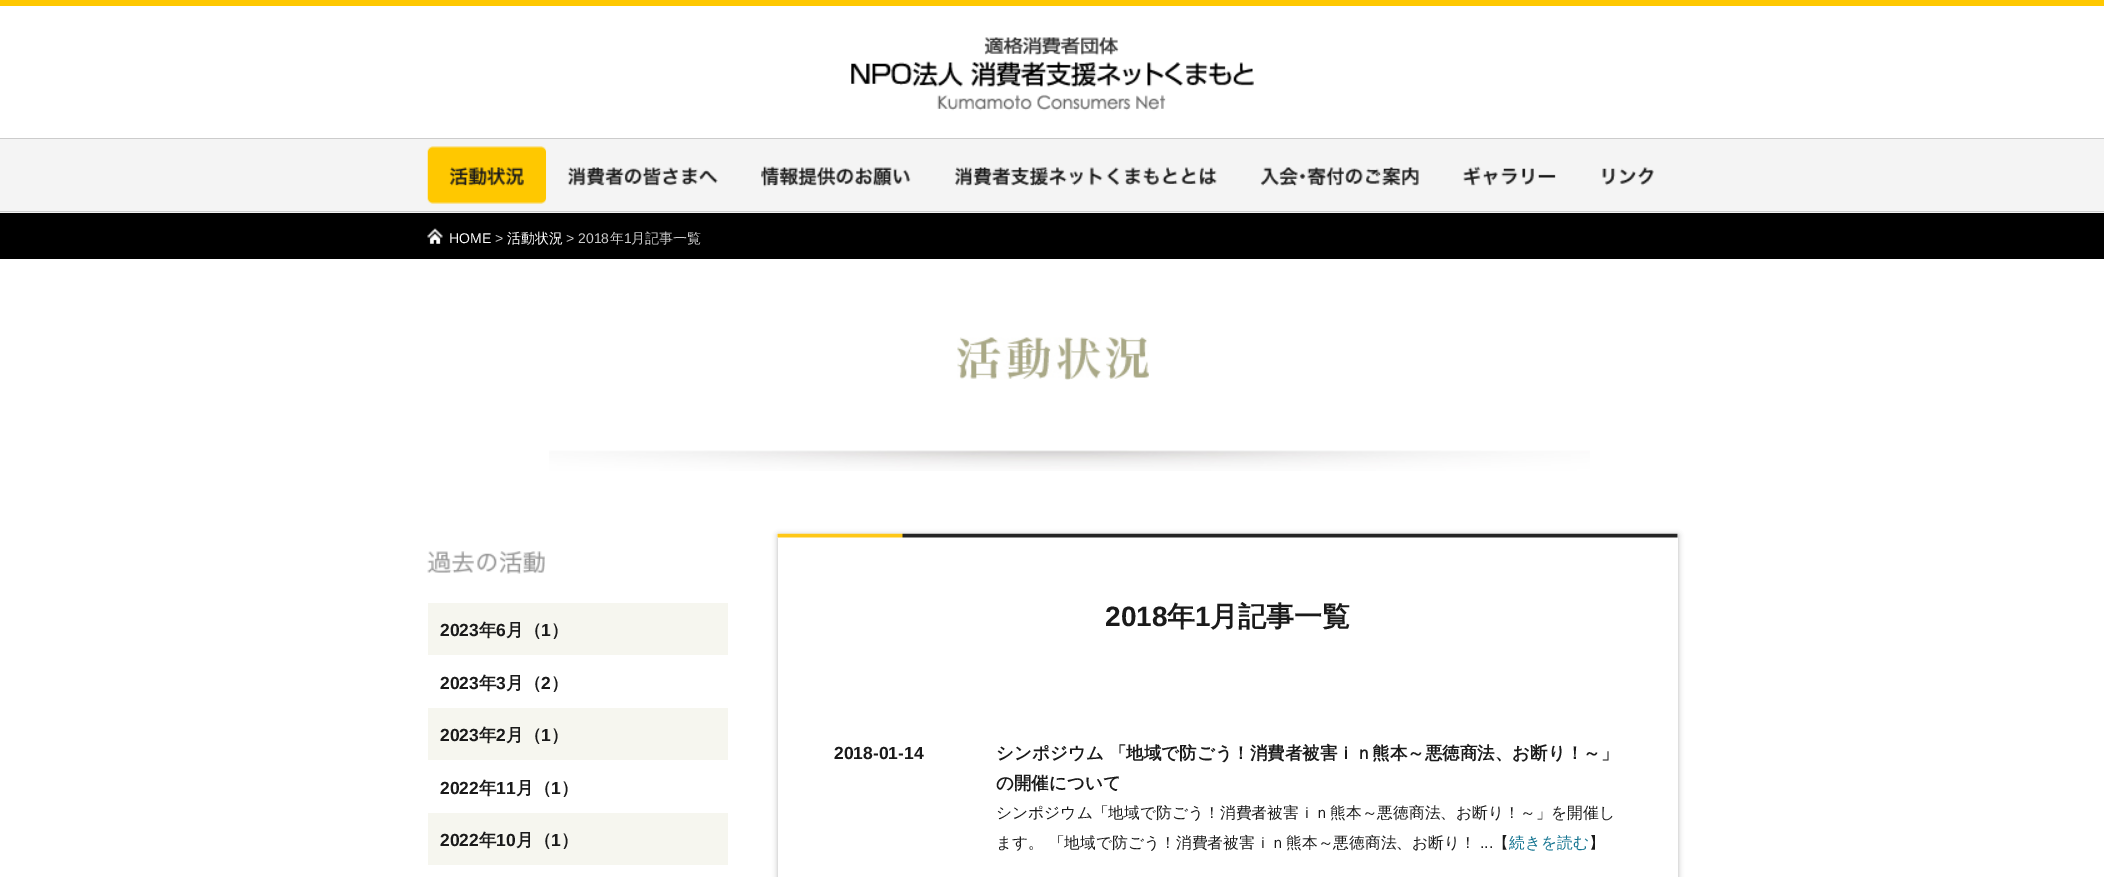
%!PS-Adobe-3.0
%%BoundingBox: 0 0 2104 877
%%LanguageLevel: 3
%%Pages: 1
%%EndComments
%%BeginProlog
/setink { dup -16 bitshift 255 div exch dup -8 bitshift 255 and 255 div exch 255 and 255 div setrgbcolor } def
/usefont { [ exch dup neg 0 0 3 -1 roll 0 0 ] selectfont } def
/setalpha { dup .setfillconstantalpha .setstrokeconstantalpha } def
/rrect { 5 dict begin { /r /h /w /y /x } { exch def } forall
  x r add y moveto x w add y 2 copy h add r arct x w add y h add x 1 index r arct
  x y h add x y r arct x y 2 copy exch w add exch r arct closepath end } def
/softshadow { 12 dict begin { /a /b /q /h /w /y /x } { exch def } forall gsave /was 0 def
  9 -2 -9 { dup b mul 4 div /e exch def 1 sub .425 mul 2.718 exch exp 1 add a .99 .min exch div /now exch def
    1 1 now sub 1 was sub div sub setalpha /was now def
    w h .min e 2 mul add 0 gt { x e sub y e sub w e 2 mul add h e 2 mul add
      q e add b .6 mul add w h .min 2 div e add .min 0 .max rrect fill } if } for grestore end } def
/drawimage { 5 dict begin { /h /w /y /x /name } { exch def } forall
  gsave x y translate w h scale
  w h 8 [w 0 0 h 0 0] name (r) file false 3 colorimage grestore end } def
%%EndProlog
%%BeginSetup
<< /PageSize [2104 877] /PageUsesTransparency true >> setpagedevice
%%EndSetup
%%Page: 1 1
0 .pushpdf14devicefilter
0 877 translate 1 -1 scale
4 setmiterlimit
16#FFFFFF setink
0 0 2104 877 rectfill
16#FFC800 setink
0 0 2104 6 rectfill
(img1.raw) 851 37 403 74 drawimage
[
    [0 139 2104 74 16#F4F4F4]
    [0 138 2104 1 16#CCCCCC]
    [0 211 2104 1 16#CCCCCC]
] { aload pop setink rectfill } forall
(img2.raw) 427 146 120 58 drawimage
(img3.raw) 546 150 172 50 drawimage
(img4.raw) 761 166 150 21 drawimage
(img5.raw) 954 167 263 19 drawimage
(img6.raw) 1260 167 159 20 drawimage
(img7.raw) 1463 166 93 20 drawimage
(img8.raw) 1602 167 52 19 drawimage
16#000000 setink
0 213 2104 46 rectfill
(img9.raw) 427 228 16 16 drawimage
/LiberationSans-Regular 14 usefont
16#FFFFFF setink
449 243 moveto (HOME) show
16#CCCCCC setink
495 243 moveto (>) show
/WenQuanYiZenHei-Medium 14 usefont
16#FFFFFF setink
507 243 moveto (活動状況) show
/LiberationSans-Regular 14 usefont
16#CCCCCC setink
566 243 moveto (> 2018) show
/WenQuanYiZenHei-Medium 14 usefont
610 243 moveto (年) show
/LiberationSans-Regular 14 usefont
624 243 moveto (1) show
/WenQuanYiZenHei-Medium 14 usefont
631 243 moveto (月記事一覧) show
(img10.raw) 549 450 1041 21 drawimage
(img11.raw) 957 337 192 43 drawimage
(img12.raw) 427 551 118 23 drawimage
16#F6F6EF setink
428 603 300 52 rectfill
/LiberationSans-Bold 17.5 usefont
16#1A1A1A setink
440 636 moveto (2023) show
/WenQuanYiZenHei-Bold 17.5 usefont
479 636 moveto (年) show
/LiberationSans-Bold 17.5 usefont
496 636 moveto (6) show
/WenQuanYiZenHei-Bold 17.5 usefont
506 636 moveto (月（) show
/LiberationSans-Bold 17.5 usefont
541 636 moveto (1) show
/WenQuanYiZenHei-Bold 17.5 usefont
551 636 moveto (）) show
/LiberationSans-Bold 17.5 usefont
440 689 moveto (2023) show
/WenQuanYiZenHei-Bold 17.5 usefont
479 689 moveto (年) show
/LiberationSans-Bold 17.5 usefont
496 689 moveto (3) show
/WenQuanYiZenHei-Bold 17.5 usefont
506 689 moveto (月（) show
/LiberationSans-Bold 17.5 usefont
541 689 moveto (2) show
/WenQuanYiZenHei-Bold 17.5 usefont
551 689 moveto (）) show
16#F6F6EF setink
428 708 300 52 rectfill
/LiberationSans-Bold 17.5 usefont
16#1A1A1A setink
440 741 moveto (2023) show
/WenQuanYiZenHei-Bold 17.5 usefont
479 741 moveto (年) show
/LiberationSans-Bold 17.5 usefont
496 741 moveto (2) show
/WenQuanYiZenHei-Bold 17.5 usefont
506 741 moveto (月（) show
/LiberationSans-Bold 17.5 usefont
541 741 moveto (1) show
/WenQuanYiZenHei-Bold 17.5 usefont
551 741 moveto (）) show
/LiberationSans-Bold 17.5 usefont
440 794 moveto (2022) show
/WenQuanYiZenHei-Bold 17.5 usefont
479 794 moveto (年) show
/LiberationSans-Bold 17.5 usefont
496 794 moveto (11) show
/WenQuanYiZenHei-Bold 17.5 usefont
516 794 moveto (月（) show
/LiberationSans-Bold 17.5 usefont
551 794 moveto (1) show
/WenQuanYiZenHei-Bold 17.5 usefont
561 794 moveto (）) show
16#F6F6EF setink
428 813 300 52 rectfill
/LiberationSans-Bold 17.5 usefont
16#1A1A1A setink
440 846 moveto (2022) show
/WenQuanYiZenHei-Bold 17.5 usefont
479 846 moveto (年) show
/LiberationSans-Bold 17.5 usefont
496 846 moveto (10) show
/WenQuanYiZenHei-Bold 17.5 usefont
516 846 moveto (月（) show
/LiberationSans-Bold 17.5 usefont
551 846 moveto (1) show
/WenQuanYiZenHei-Bold 17.5 usefont
561 846 moveto (）) show
16#000000 setink
778 535 900 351 0 3 0.3 softshadow
16#FFFFFF setink
778 534 900 343 rectfill
(img13.raw) 777 533 901 5 drawimage
/LiberationSans-Bold 28 usefont
16#1A1A1A setink
1105 626 moveto (2018) show
/WenQuanYiZenHei-Bold 28 usefont
1167 626 moveto (年) show
/LiberationSans-Bold 28 usefont
1195 626 moveto (1) show
/WenQuanYiZenHei-Bold 28 usefont
1210 626 moveto (月記事一覧) show
/LiberationSans-Bold 17.5 usefont
834 759 moveto (2018-01-14) show
/WenQuanYiZenHei-Bold 17.5 usefont
996 759 moveto (シンポジウム 「地域で防ごう！消費者被害ｉｎ熊本～悪徳商法、お断り！～」) show
996 789 moveto (の開催について) show
/WenQuanYiZenHei-Medium 15.75 usefont
996 818 moveto (シンポジウム「地域で防ごう！消費者被害ｉｎ熊本～悪徳商法、お断り！～」を開催し) show
996 848 moveto (ます。 「地域で防ごう！消費者被害ｉｎ熊本～悪徳商法、お断り！) show
/LiberationSans-Regular 15.75 usefont
1480 848 moveto (...) show
/WenQuanYiZenHei-Medium 15.75 usefont
1493 848 moveto (【) show
16#11728F setink
1509 848 moveto (続きを読む) show
16#1A1A1A setink
1589 848 moveto (】) show
.poppdf14devicefilter showpage
%%EOF
